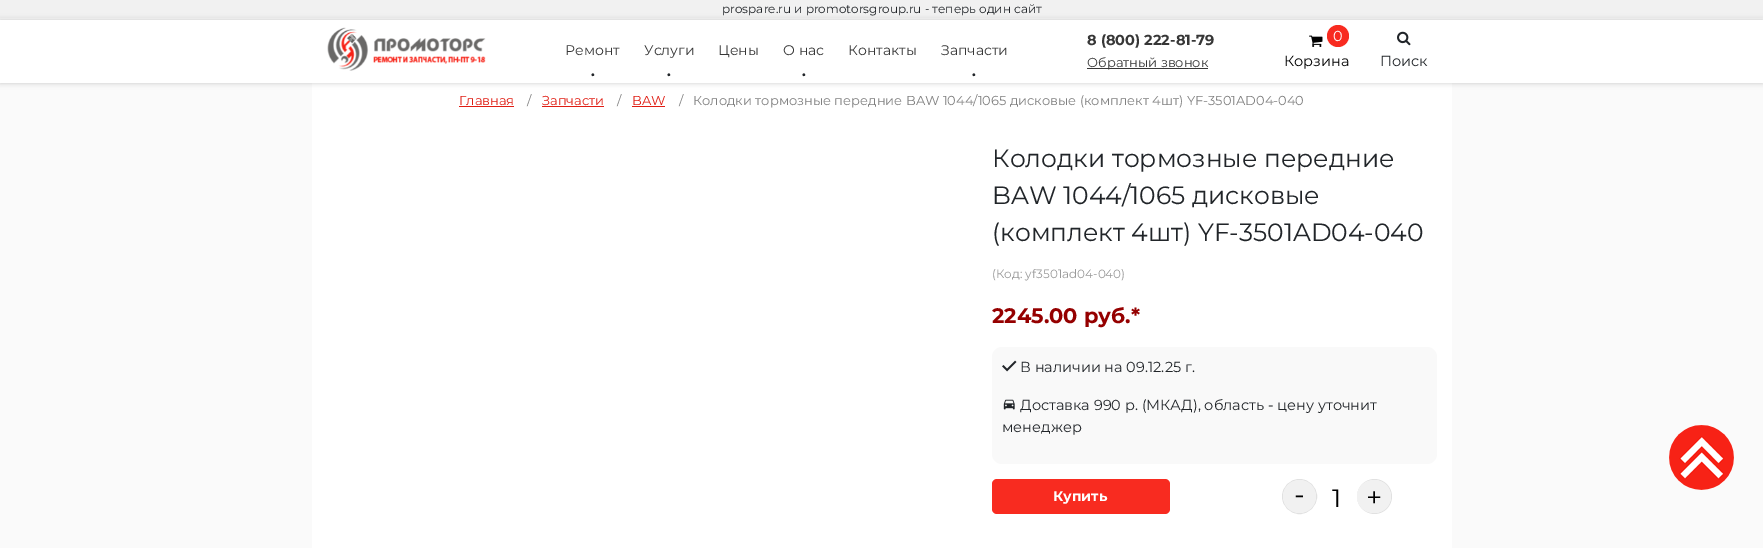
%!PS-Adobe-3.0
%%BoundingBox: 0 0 1763 548
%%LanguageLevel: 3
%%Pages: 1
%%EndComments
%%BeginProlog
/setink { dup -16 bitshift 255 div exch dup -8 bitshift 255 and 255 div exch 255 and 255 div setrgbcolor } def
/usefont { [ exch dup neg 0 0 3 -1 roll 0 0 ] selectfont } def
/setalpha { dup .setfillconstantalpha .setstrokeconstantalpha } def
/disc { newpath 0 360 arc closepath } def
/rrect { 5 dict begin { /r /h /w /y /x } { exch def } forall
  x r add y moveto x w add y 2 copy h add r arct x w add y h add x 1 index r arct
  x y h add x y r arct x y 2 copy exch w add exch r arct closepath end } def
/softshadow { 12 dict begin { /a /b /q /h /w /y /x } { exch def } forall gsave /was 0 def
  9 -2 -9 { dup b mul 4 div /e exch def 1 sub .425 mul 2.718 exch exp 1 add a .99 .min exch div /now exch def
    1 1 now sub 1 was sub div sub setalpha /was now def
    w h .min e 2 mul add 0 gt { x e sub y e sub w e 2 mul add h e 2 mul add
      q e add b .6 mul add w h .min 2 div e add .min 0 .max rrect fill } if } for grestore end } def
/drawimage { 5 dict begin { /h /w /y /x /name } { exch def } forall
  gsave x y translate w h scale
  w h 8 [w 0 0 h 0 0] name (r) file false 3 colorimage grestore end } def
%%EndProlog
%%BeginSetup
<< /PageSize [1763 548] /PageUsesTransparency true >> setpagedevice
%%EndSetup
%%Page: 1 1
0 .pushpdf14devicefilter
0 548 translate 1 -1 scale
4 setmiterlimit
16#FAFAFA setink
0 0 1763 548 rectfill
16#F1F1F1 setink
0 0 1763 18 rectfill
/Montserrat-Regular 12 usefont
16#212529 setink
722 13 moveto (prospare.ru и promotorsgroup.ru - теперь один сайт) show
16#FFFFFF setink
312 83 1140 465 rectfill
16#808080 setink
0 20 1763 63 0 3 0.42 softshadow
16#FFFFFF setink
0 20 1763 63 rectfill
(img1.raw) 327 27 159 44 drawimage
/Montserrat-Regular 14 usefont
16#373737 setink
565 55 moveto (Ремонт) show
/Montserrat-Bold 14.5 usefont
16#212529 setink
591 76 moveto (.) show
/Montserrat-Regular 14 usefont
16#373737 setink
644 55 moveto (Услуги) show
/Montserrat-Bold 14.5 usefont
16#212529 setink
667 76 moveto (.) show
/Montserrat-Regular 14 usefont
16#373737 setink
718 55 moveto (Цены) show
783 55 moveto (О нас) show
/Montserrat-Bold 14.5 usefont
16#212529 setink
802 76 moveto (.) show
/Montserrat-Regular 14 usefont
16#373737 setink
848 55 moveto (Контакты) show
941 55 moveto (Запчасти) show
/Montserrat-Bold 14.5 usefont
16#212529 setink
972 76 moveto (.) show
16#373737 setink
1087 45 moveto (8 \(800\) 222-81-79) show
1087 68 121 1 rectfill
/Montserrat-Regular 13 usefont
1087 67 moveto (Обратный звонок) show
(img2.raw) 1309 35 14 12 drawimage
16#F82B20 setink
1338 36 11 disc fill
/Montserrat-Regular 14.5 usefont
16#FFFFFF setink
1333 41 moveto (0) show
16#000000 setink
1284 66 moveto (Корзина) show
(img3.raw) 1397 31 14 15 drawimage
16#212529 setink
1380 66 moveto (Поиск) show
/Montserrat-Regular 13 usefont
16#E01D13 setink
459 105 moveto (Главная) show
459 106 55 1 rectfill
16#808080 setink
527 105 moveto (/) show
16#E01D13 setink
542 105 moveto (Запчасти) show
542 106 62 1 rectfill
16#808080 setink
617 105 moveto (/) show
16#E01D13 setink
632 105 moveto (BAW) show
632 106 33 1 rectfill
16#808080 setink
679 105 moveto (/) show
693 105 moveto (Колодки тормозные передние BAW 1044/1065 дисковые \(комплект 4шт\) YF-3501AD04-040) show
/Montserrat-Regular 25 usefont
16#212529 setink
[
    [(Колодки тормозные передние) 992 167]
    [(BAW 1044/1065 дисковые) 992 204]
    [(\(комплект 4шт\) YF-3501AD04-040) 992 241]
] { aload pop moveto show } forall
/Montserrat-Regular 12 usefont
16#999999 setink
992 278 moveto (\(Код: yf3501ad04-040\)) show
/Montserrat-Bold 21 usefont
16#950000 setink
992 323 moveto (2245.00 руб.*) show
16#F9F9F9 setink
992 347 445 117 10 rrect fill
(img4.raw) 1002 360 15 12 drawimage
/Montserrat-Regular 14.5 usefont
16#212529 setink
1020 372 moveto (В наличии на 09.12.25 г.) show
(img5.raw) 1003 399 12 11 drawimage
1020 410 moveto (Доставка 990 р. \(МКАД\), область - цену уточнит) show
1002 432 moveto (менеджер) show
16#F82B20 setink
992 479 178 35 5 rrect fill
/Montserrat-Bold 14 usefont
16#FFFFFF setink
1053 501 moveto (Купить) show
16#E1E1E1 setink
1299.5 496.5 17 disc stroke
16#F1F1F1 setink
1299.5 496.5 16.5 disc fill
/Montserrat-Regular 28 usefont
16#000000 setink
1294 504 moveto (-) show
/Montserrat-Regular 25 usefont
1332 507 moveto (1) show
16#E1E1E1 setink
1374.5 479 moveto 1384 479 1392 487 1392 496.5 curveto 1392 506 1384 514 1374.5 514 curveto 1365 514 1357 506 1357 496.5 curveto 1357 487 1365 479 1374.5 479 curveto closepath 1374.5 480 moveto 1383.5 480 1391 487.5 1391 496.5 curveto 1391 505.5 1383.5 513 1374.5 513 curveto 1365 513 1357 505.5 1357 496.5 curveto 1357 487.5 1365 480 1374.5 480 curveto closepath eofill
16#F1F1F1 setink
1357 480 34 33 16.5 rrect fill
/Montserrat-Regular 28 usefont
16#000000 setink
1366 507 moveto (+) show
(img6.raw) 1669 425 65 65 drawimage
.poppdf14devicefilter showpage
%%EOF
